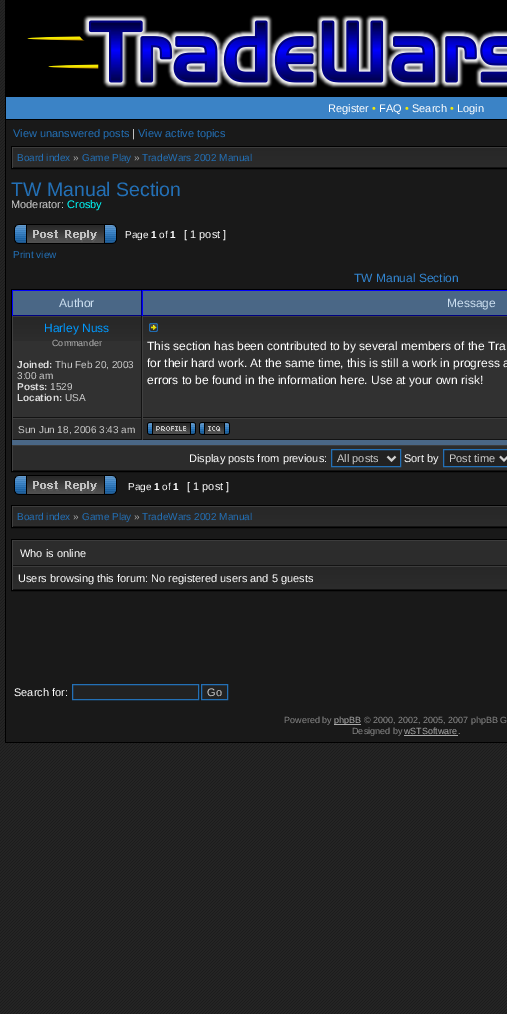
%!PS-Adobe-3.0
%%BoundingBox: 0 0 507 1014
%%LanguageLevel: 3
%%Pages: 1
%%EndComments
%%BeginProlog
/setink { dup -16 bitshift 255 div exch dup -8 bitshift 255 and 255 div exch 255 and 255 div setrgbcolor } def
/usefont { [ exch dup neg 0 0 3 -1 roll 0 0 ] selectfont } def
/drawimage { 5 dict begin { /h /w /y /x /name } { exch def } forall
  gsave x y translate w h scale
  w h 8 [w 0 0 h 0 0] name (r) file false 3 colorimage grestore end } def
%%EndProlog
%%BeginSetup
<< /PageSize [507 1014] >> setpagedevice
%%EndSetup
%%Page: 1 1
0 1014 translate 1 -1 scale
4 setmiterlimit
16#FFFFFF setink
0 0 507 1014 rectfill
(img1.raw) 0 0 507 1014 drawimage
16#000000 setink
5 742 502 1 rectfill
5 0 1 743 rectfill
(img2.raw) 6 0 501 96 drawimage
(img3.raw) 6 15 501 73 drawimage
[
    [6 97 501 22 16#3B83C6]
    [6 96 501 1 16#000000]
    [6 119 501 1 16#000000]
] { aload pop setink rectfill } forall
/LiberationSans-Regular 11 usefont
16#FFFFFF setink
328 112 moveto (Register) show
16#F0E80A setink
372 112 moveto (•) show
16#FFFFFF setink
379 112 moveto (FAQ) show
16#F0E80A setink
405 112 moveto (•) show
16#FFFFFF setink
412 112 moveto (Search) show
16#F0E80A setink
450 112 moveto (•) show
16#FFFFFF setink
457 112 moveto (Login) show
16#191919 setink
6 120 501 622 rectfill
16#2370B6 setink
13 137 moveto (View unanswered posts) show
16#FFFFFF setink
132 137 moveto (|) show
16#2370B6 setink
138 137 moveto (View active topics) show
16#000000 setink
11.5 146.5 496 22 rectstroke
(img4.raw) 13 148 494 19 drawimage
[
    [12 147 495 1 16#3C3C3C]
    [12 167 495 1 16#131313]
    [12 147 1 21 16#404040]
] { aload pop setink rectfill } forall
/LiberationSans-Regular 10 usefont
16#2370B6 setink
17 161 moveto (Board index) show
16#AAAAAA setink
73 161 moveto (») show
16#2370B6 setink
82 161 moveto (Game Play) show
16#AAAAAA setink
134 161 moveto (») show
16#2370B6 setink
142 161 moveto (TradeWars 2002 Manual) show
/LiberationSans-Regular 19.5 usefont
11 196 moveto (TW Manual Section) show
/LiberationSans-Regular 11 usefont
16#CCCCCC setink
11 208 moveto (Moderator:) show
16#00FFFF setink
67 208 moveto (Crosby) show
(img5.raw) 14 224 103 20 drawimage
/LiberationSans-Regular 10 usefont
16#FFFFFF setink
125 238 moveto (Page) show
/LiberationSans-Bold 10 usefont
151 238 moveto (1) show
/LiberationSans-Regular 10 usefont
159 238 moveto (of) show
/LiberationSans-Bold 10 usefont
170 238 moveto (1) show
/LiberationSans-Regular 11 usefont
184 238 moveto ([ 1 post ]) show
/LiberationSans-Regular 10 usefont
16#2370B6 setink
13 258 moveto (Print view) show
/LiberationSans-Regular 12 usefont
16#3285D0 setink
354 282 moveto (TW Manual Section) show
16#000000 setink
11.5 289.5 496 182 rectstroke
[
    [13 291 128 24 16#4A6786]
    [12 290 495 1 16#0000FF]
    [141 290 1 26 16#000080]
    [12 315 495 1 16#000080]
    [12 290 1 26 16#0000FF]
] { aload pop setink rectfill } forall
16#CCDFF0 setink
59 307 moveto (Author) show
16#4A6786 setink
143 291 364 24 rectfill
16#0000FF setink
142 290 1 26 rectfill
16#CCDFF0 setink
447 307 moveto (Message) show
16#313131 setink
13 341 128 76 rectfill
(img6.raw) 13 317 128 24 drawimage
[
    [12 316 495 1 16#3C3C3C]
    [141 316 1 102 16#121212]
    [12 417 495 1 16#131313]
    [12 316 1 102 16#404040]
] { aload pop setink rectfill } forall
16#0099FF setink
44 332 moveto (Harley Nuss) show
/LiberationSans-Regular 9 usefont
16#B0B0B0 setink
52 346 moveto (Commander) show
/LiberationSans-Bold 10 usefont
16#DDDDDD setink
17 368 moveto (Joined:) show
/LiberationSans-Regular 10 usefont
16#CCCCCC setink
55 368 moveto (Thu Feb 20, 2003) show
17 379 moveto (3:00 am) show
/LiberationSans-Bold 10 usefont
16#DDDDDD setink
17 390 moveto (Posts:) show
/LiberationSans-Regular 10 usefont
16#CCCCCC setink
50 390 moveto (1529) show
/LiberationSans-Bold 10 usefont
16#DDDDDD setink
17 401 moveto (Location:) show
/LiberationSans-Regular 10 usefont
16#CCCCCC setink
65 401 moveto (USA) show
16#313131 setink
143 341 364 76 rectfill
(img7.raw) 143 317 364 24 drawimage
16#404040 setink
142 316 1 102 rectfill
(img8.raw) 149 323 9 9 drawimage
/LiberationSans-Regular 12 usefont
16#FFFFFF setink
[
    [(This section has been contributed to by several members of the Tra) 147 350]
    [(for their hard work. At the same time, this is still a work in progress a) 147 367]
    [(errors to be found in the information here. Use at your own risk!) 147 384]
] { aload pop moveto show } forall
[
    [13 419 128 20 16#2D2D2D]
    [12 418 495 1 16#3C3C3C]
    [141 418 1 22 16#121212]
    [12 439 495 1 16#131313]
    [12 418 1 22 16#404040]
] { aload pop setink rectfill } forall
/LiberationSans-Regular 10 usefont
16#CCCCCC setink
18 433 moveto (Sun Jun 18, 2006 3:43 am) show
16#2D2D2D setink
143 419 364 20 rectfill
16#404040 setink
142 418 1 22 rectfill
(img9.raw) 147 422 49 13 drawimage
(img10.raw) 199 422 31 13 drawimage
[
    [12 440 495 5 16#4A6786]
    [13 446 494 24 16#2C2C2C]
    [12 445 495 1 16#3C3C3C]
    [12 470 495 1 16#131313]
    [12 445 1 26 16#404040]
] { aload pop setink rectfill } forall
/LiberationSans-Regular 11 usefont
16#FFFFFF setink
189 462 moveto (Display posts from previous:) show
16#222222 setink
331.5 449.5 moveto 400.5 449.5 lineto 400.5 466.5 lineto 331.5 466.5 lineto closepath gsave fill grestore
16#2370B6 setink
stroke
16#D0D0D0 setink
2 setlinewidth
387.5 456.5 moveto 391.5 460.5 lineto 395.5 456.5 lineto stroke
16#CCCCCC setink
337 462 moveto (All posts) show
16#FFFFFF setink
404 462 moveto (Sort by) show
16#222222 setink
443.5 449.5 moveto 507.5 449.5 lineto 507.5 466.5 lineto 443.5 466.5 lineto closepath gsave fill grestore
16#2370B6 setink
1 setlinewidth
stroke
16#D0D0D0 setink
2 setlinewidth
500 456.5 moveto 504 460.5 lineto 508 456.5 lineto stroke
16#CCCCCC setink
449 462 moveto (Post time) show
(img5.raw) 14 475 103 20 drawimage
/LiberationSans-Regular 10 usefont
16#FFFFFF setink
128 490 moveto (Page) show
/LiberationSans-Bold 10 usefont
154 490 moveto (1) show
/LiberationSans-Regular 10 usefont
162 490 moveto (of) show
/LiberationSans-Bold 10 usefont
173 490 moveto (1) show
/LiberationSans-Regular 11 usefont
187 490 moveto ([ 1 post ]) show
16#000000 setink
1 setlinewidth
11.5 505.5 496 22 rectstroke
(img4.raw) 13 507 494 19 drawimage
[
    [12 506 495 1 16#3C3C3C]
    [12 526 495 1 16#131313]
    [12 506 1 21 16#404040]
] { aload pop setink rectfill } forall
/LiberationSans-Regular 10 usefont
16#2370B6 setink
17 520 moveto (Board index) show
16#AAAAAA setink
73 520 moveto (») show
16#2370B6 setink
82 520 moveto (Game Play) show
16#AAAAAA setink
134 520 moveto (») show
16#2370B6 setink
142 520 moveto (TradeWars 2002 Manual) show
16#000000 setink
11.5 539.5 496 51 rectstroke
[
    [13 541 494 24 16#2C2C2C]
    [12 540 495 1 16#3C3C3C]
    [12 565 495 1 16#131313]
    [12 540 1 26 16#404040]
] { aload pop setink rectfill } forall
/LiberationSans-Regular 11 usefont
16#FFFFFF setink
20 557 moveto (Who is online) show
(img11.raw) 13 567 494 22 drawimage
[
    [12 566 495 1 16#3C3C3C]
    [12 589 495 1 16#131313]
    [12 566 1 24 16#404040]
] { aload pop setink rectfill } forall
16#FFFFFF setink
18 582 moveto (Users browsing this forum: No registered users and 5 guests) show
14 696 moveto (Search for:) show
16#222222 setink
72.5 684.5 moveto 198.5 684.5 lineto 198.5 699.5 lineto 72.5 699.5 lineto closepath gsave fill grestore
16#2370B6 setink
stroke
16#222222 setink
201.5 684.5 moveto 227.5 684.5 lineto 227.5 699.5 lineto 201.5 699.5 lineto closepath gsave fill grestore
16#2370B6 setink
stroke
16#CCCCCC setink
207 696 moveto (Go) show
/LiberationSans-Regular 9 usefont
16#888888 setink
284 723 moveto (Powered by) show
16#AAAAAA setink
334 724 27 1 rectfill
334 723 moveto (phpBB) show
16#888888 setink
364 723 moveto (© 2000, 2002, 2005, 2007 phpBB G) show
352 734 moveto (Designed by) show
16#AAAAAA setink
404 734 moveto (wSTSoftware) show
16#888888 setink
458 734 moveto (.) show
16#AAAAAA setink
404 735 54 1 rectfill
showpage
%%EOF
